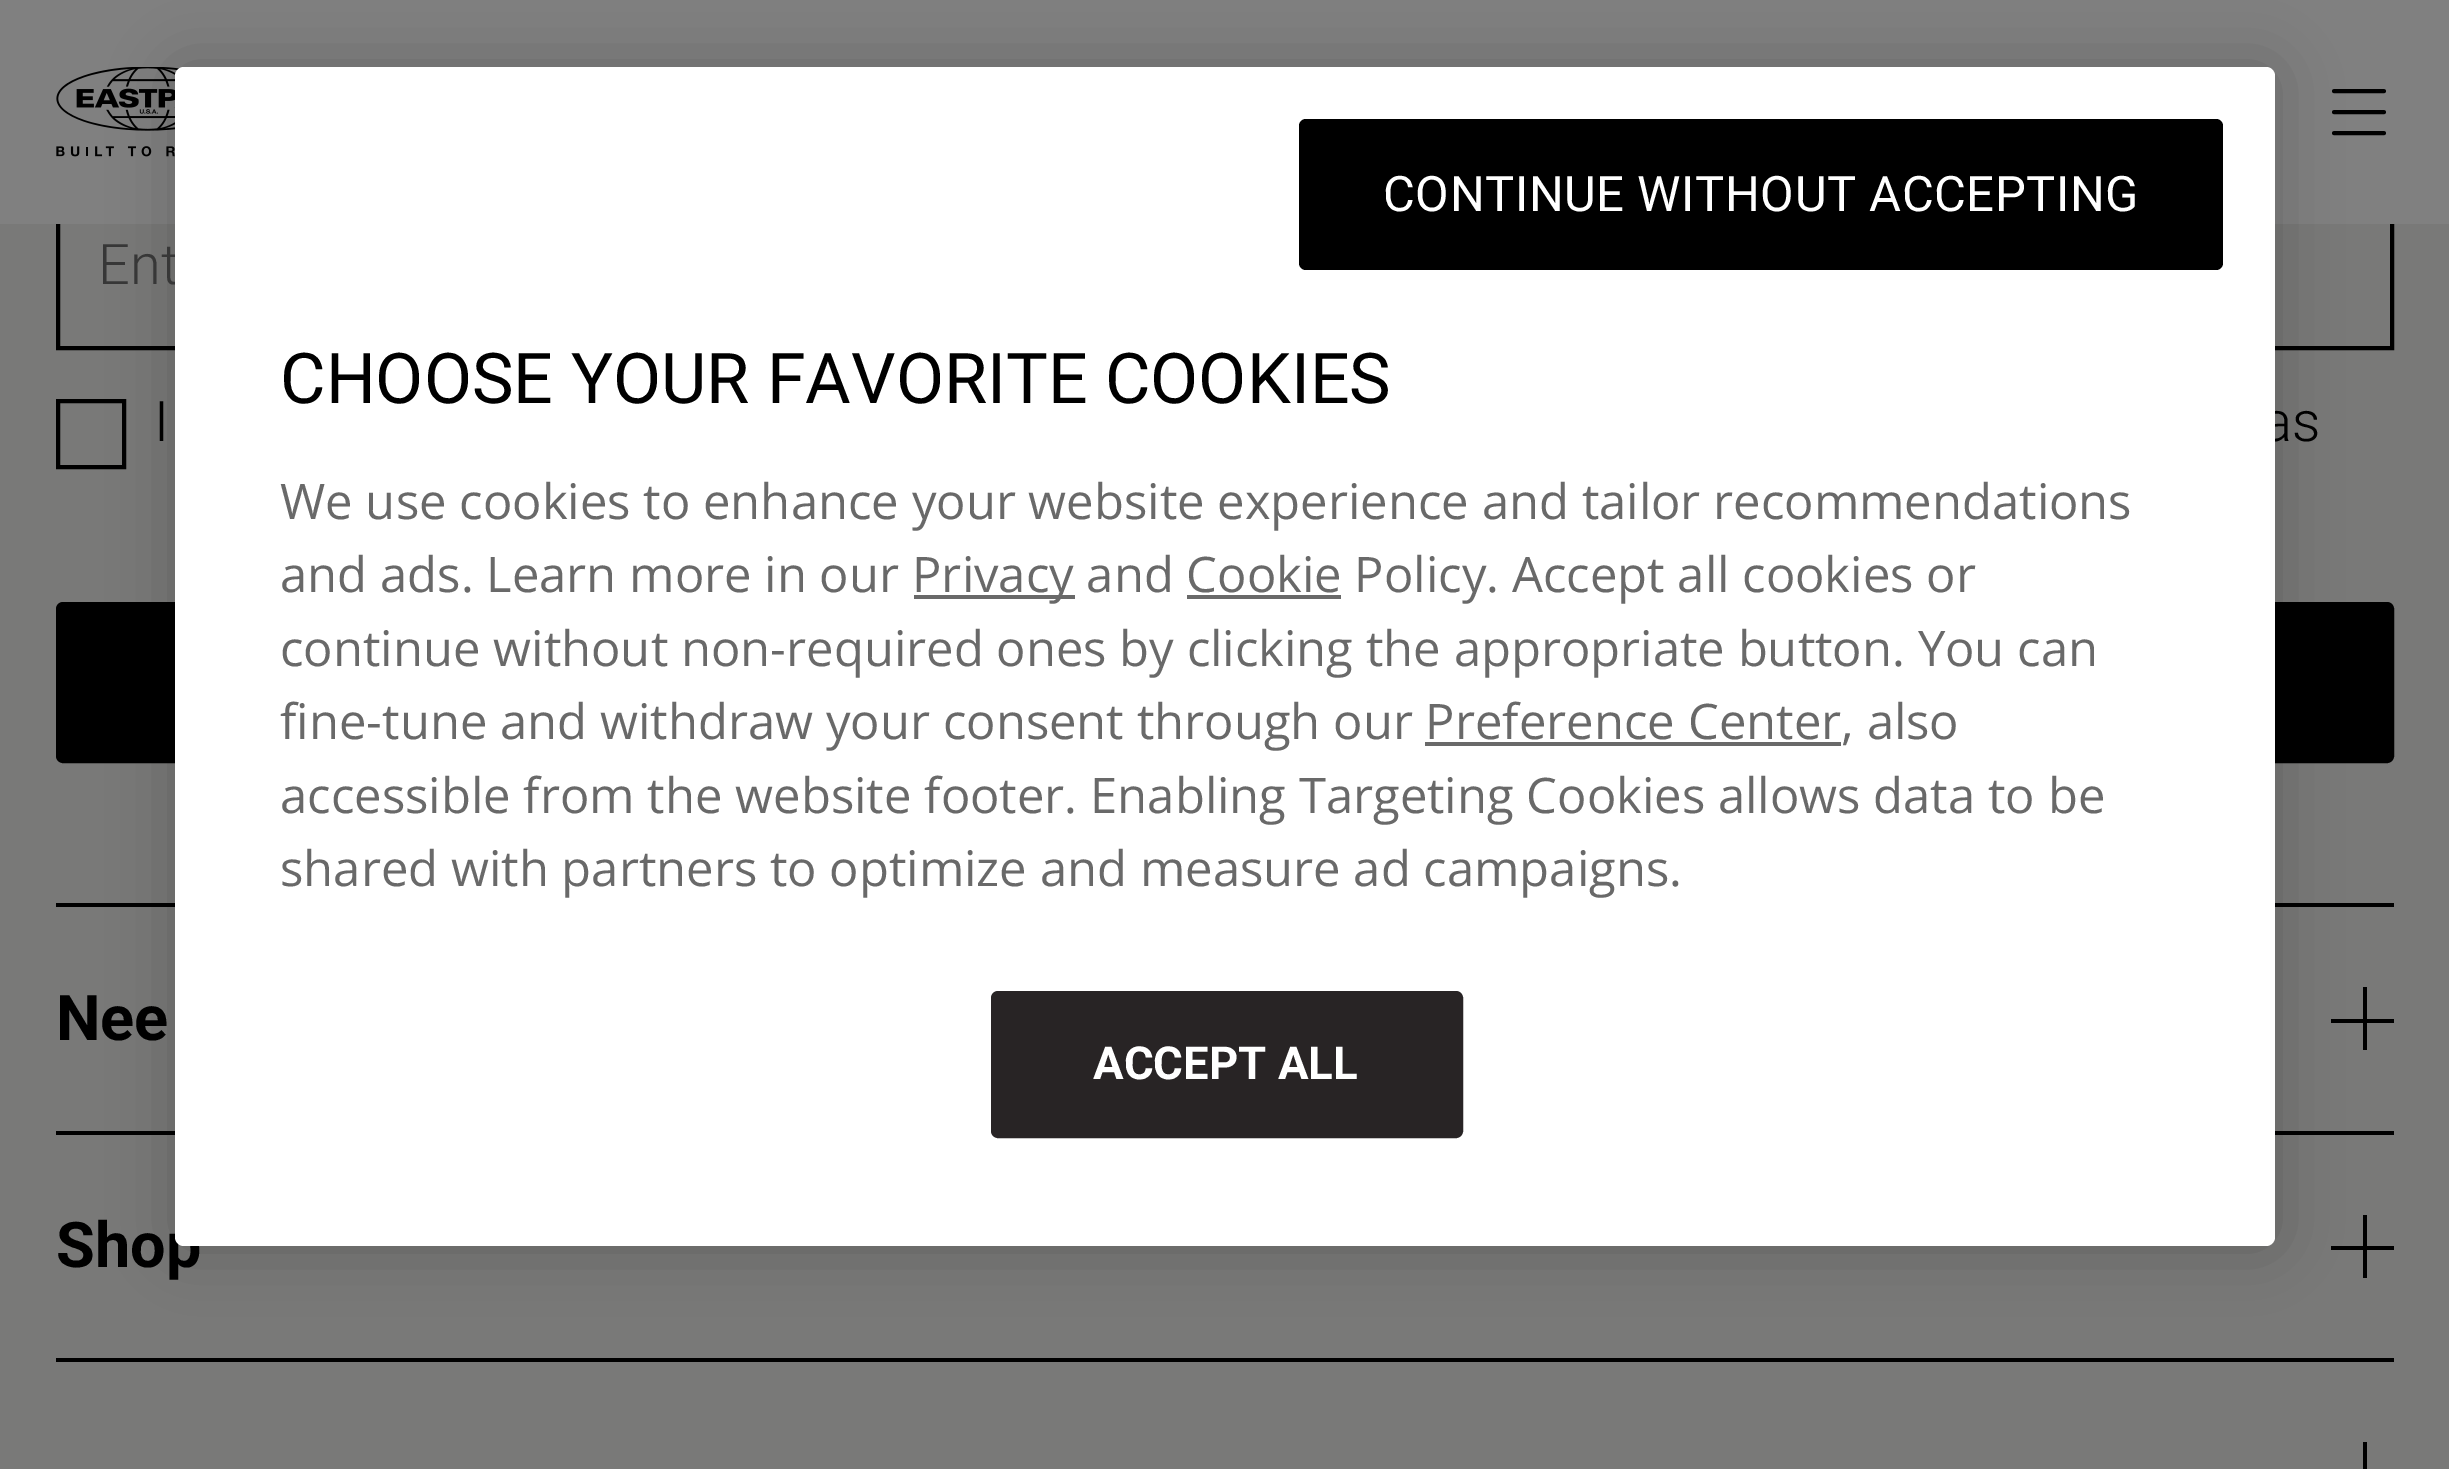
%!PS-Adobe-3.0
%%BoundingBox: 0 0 2449 1469
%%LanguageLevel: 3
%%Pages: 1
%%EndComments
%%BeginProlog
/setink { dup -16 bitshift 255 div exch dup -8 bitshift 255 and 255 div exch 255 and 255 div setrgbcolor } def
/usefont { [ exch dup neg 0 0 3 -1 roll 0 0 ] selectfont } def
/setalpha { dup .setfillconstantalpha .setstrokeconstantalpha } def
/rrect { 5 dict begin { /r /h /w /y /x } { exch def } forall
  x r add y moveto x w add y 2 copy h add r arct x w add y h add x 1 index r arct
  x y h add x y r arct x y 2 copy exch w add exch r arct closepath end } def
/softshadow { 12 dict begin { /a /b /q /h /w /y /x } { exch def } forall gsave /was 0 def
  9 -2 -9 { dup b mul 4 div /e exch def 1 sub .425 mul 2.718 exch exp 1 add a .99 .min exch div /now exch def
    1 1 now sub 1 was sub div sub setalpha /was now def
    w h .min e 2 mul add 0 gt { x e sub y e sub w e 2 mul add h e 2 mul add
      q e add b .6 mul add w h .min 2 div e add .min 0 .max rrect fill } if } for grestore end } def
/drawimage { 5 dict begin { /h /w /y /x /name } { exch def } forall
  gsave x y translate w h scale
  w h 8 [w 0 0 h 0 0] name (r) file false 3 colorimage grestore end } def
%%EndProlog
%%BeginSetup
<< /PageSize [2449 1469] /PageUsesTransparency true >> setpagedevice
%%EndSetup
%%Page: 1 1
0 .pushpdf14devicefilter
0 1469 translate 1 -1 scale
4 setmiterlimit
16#797978 setink
0 0 2449 1469 rectfill
16#000000 setink
4 setlinewidth
58 184 2334 164 rectstroke
16#808080 setink
0 0 2449 224 rectfill
(img1.raw) 56 67 124 90 drawimage
16#000000 setink
3.9 setlinewidth
1 setlinecap
2334 112 moveto 2384 112 lineto 2334 133 moveto 2384 133 lineto 2334 91 moveto 2384 91 lineto stroke
4 setlinewidth
0 setlinecap
58 401 66 66 rectstroke
58 604 2334 157 5 rrect gsave fill grestore
stroke
[
    [56 903 2338 4 16#000000]
    [2363 987 4 63 16#000000]
    [2331 1019 63 4 16#000000]
    [56 1131 2338 4 16#000000]
    [2363 1215 4 63 16#000000]
    [2331 1246 63 4 16#000000]
] { aload pop setink rectfill } forall
175 67 2100 1179 9 31.5 0.2 softshadow
/Roboto-Light 56 usefont
16#373737 setink
98 284 moveto (Ent) show
16#000000 setink
2262 441 moveto (as) show
/Roboto-Bold 63 usefont
56 1267 moveto (Shop) show
16#FFFFFF setink
175 67 2100 1179 9 rrect fill
16#000000 setink
1299 119 924 151 7 rrect fill
/Roboto-Regular 49 usefont
16#FFFFFF setink
1383 211 moveto 0.5 0 (CONTINUE WITHOUT ACCEPTING) ashow
/Roboto-Regular 70 usefont
16#000000 setink
280 403 moveto (CHOOSE YOUR FAVORITE COOKIES) show
/OpenSans-Regular 49 usefont
16#696969 setink
280 519 moveto (We use cookies to enhance your website experience and tailor recommendations) show
280 592 moveto (and ads. Learn more in our) show
914 595 161 4 rectfill
912 592 moveto (Privacy and Cookie Policy. Accept all cookies or) show
1187 595 154 4 rectfill
280 666 moveto (continue without non-required ones by clicking the appropriate button. You can) show
280 739 moveto (fine-tune and withdraw your consent through our Preference Center, also) show
1425 742 416 4 rectfill
280 813 moveto (accessible from the website footer. Enabling Targeting Cookies allows data to be) show
280 886 moveto (shared with partners to optimize and measure ad campaigns.) show
16#282425 setink
993 993 468 143 5 rrect gsave fill grestore
stroke
/Roboto-Bold 45.5 usefont
16#FFFFFF setink
1093 1079 moveto (ACCEPT ALL) show
/Roboto-Light 56 usefont
16#000000 setink
154 441 moveto (I) show
/Roboto-Bold 63 usefont
56 1040 moveto (Nee) show
56 1358 2338 4 rectfill
2363 1442 4 27 rectfill
.poppdf14devicefilter showpage
%%EOF
